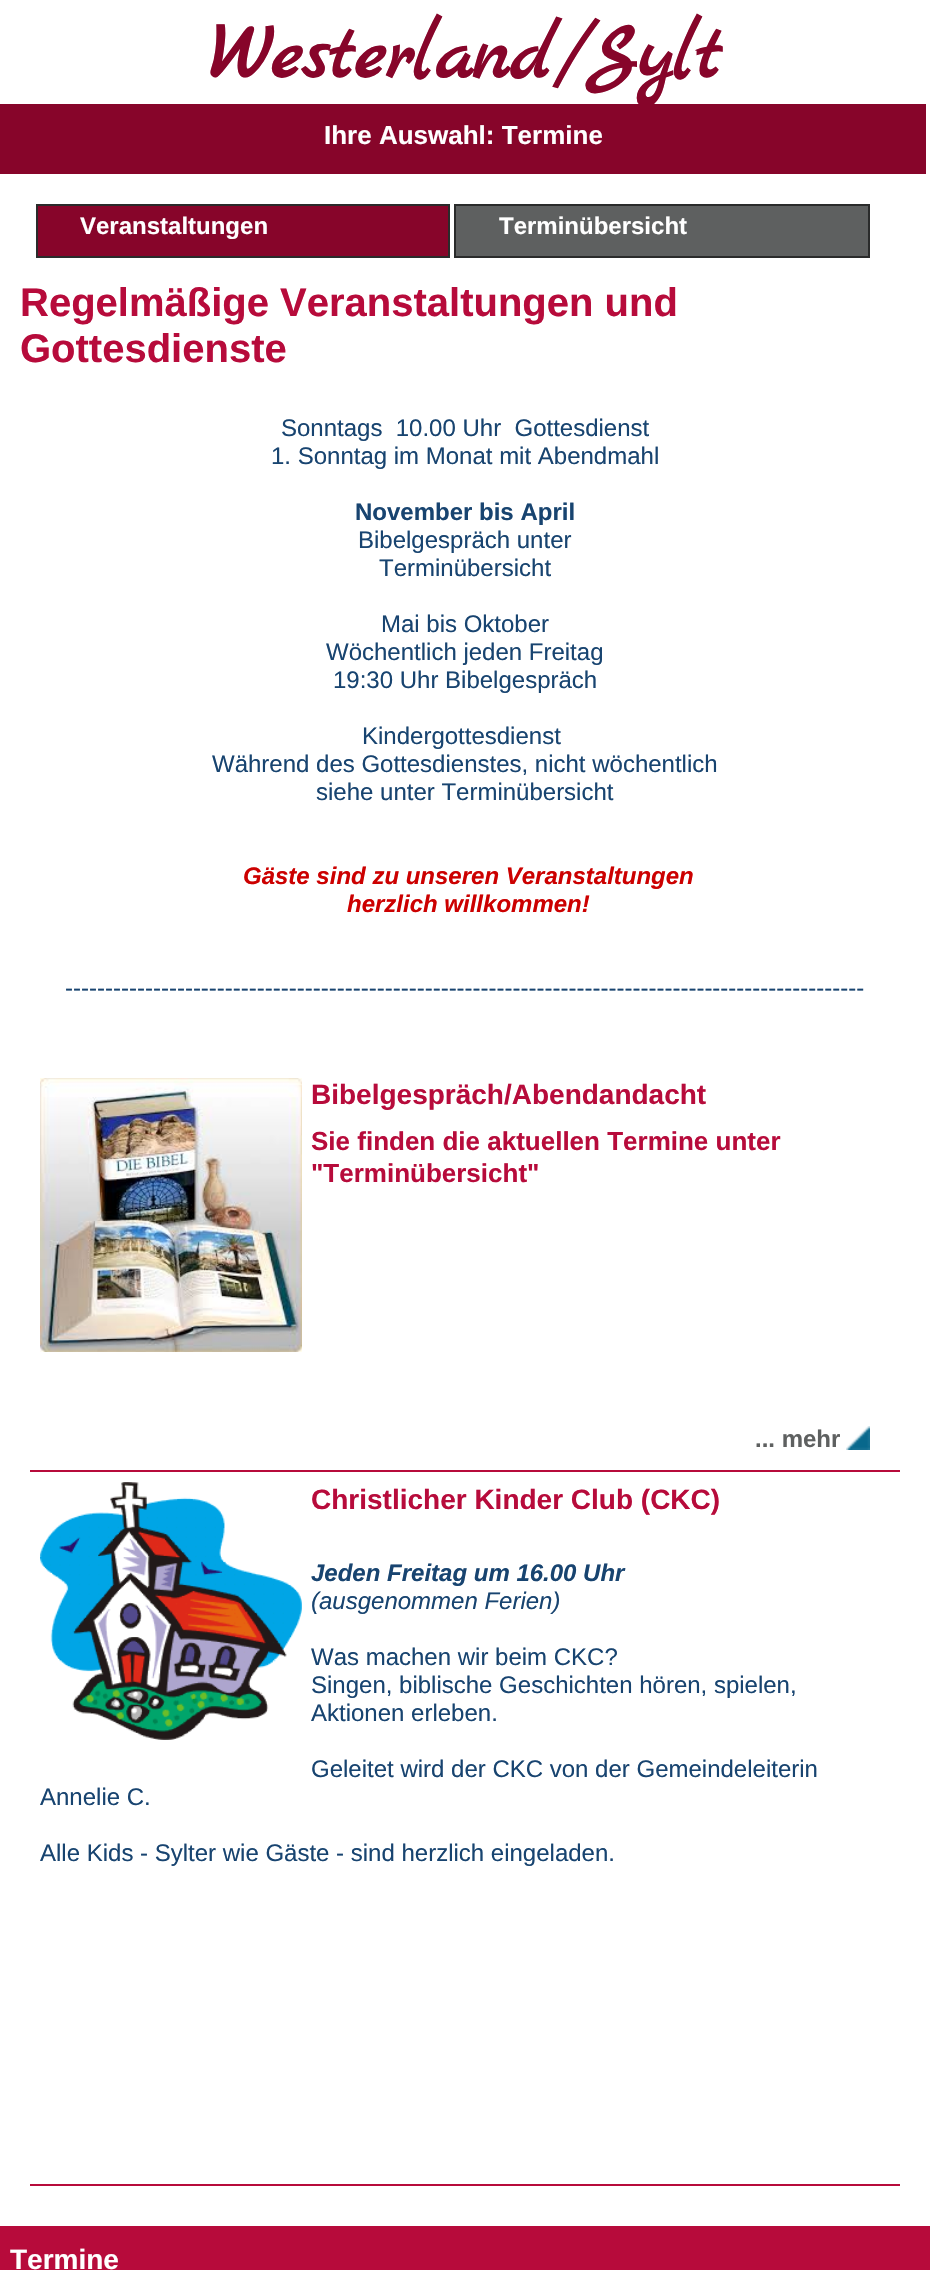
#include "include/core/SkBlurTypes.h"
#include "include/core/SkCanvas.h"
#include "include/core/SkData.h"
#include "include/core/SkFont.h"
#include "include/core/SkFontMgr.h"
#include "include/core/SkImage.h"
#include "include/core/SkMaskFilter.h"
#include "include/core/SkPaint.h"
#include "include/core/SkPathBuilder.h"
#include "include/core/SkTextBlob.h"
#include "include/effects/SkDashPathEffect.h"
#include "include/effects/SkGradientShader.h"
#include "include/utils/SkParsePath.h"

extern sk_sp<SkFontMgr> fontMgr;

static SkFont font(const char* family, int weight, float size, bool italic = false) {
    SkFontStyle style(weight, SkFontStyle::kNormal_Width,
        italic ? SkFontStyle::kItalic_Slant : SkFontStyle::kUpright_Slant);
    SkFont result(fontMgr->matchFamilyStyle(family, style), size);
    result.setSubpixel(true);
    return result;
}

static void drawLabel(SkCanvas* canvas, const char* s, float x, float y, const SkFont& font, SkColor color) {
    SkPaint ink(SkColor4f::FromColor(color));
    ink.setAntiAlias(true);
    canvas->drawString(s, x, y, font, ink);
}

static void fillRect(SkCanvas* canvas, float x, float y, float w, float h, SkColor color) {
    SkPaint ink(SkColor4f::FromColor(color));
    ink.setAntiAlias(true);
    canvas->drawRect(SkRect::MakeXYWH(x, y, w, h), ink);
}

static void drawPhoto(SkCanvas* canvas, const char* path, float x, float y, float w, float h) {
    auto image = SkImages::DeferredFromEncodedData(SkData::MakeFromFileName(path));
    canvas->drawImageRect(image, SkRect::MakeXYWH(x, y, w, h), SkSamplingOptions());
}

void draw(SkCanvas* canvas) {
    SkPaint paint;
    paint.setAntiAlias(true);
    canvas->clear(0xFFFFFFFF);
    fillRect(canvas, 0, 104, 926, 70, 0xFF87052A);
    SkFont font1 = font("Marck Script", 700, 80);
    drawLabel(canvas, "Westerland/Sylt", 208, 78, font1, 0xFF87052A);
    SkFont font2 = font("Liberation Sans", 700, 26);
    drawLabel(canvas, "Ihre Auswahl: Termine", 324, 144, font2, 0xFFFFFFFF);
    paint.setColor(0xFF87052A);
    canvas->drawRect(SkRect::MakeXYWH(37, 205, 412, 52), paint);
    paint.setStroke(true);
    paint.setStrokeWidth(2);
    paint.setColor(0xFF2A2B2B);
    canvas->drawRect(SkRect::MakeXYWH(37, 205, 412, 52), paint);
    SkFont font3 = font("Liberation Sans", 700, 24);
    drawLabel(canvas, "Veranstaltungen", 80, 234, font3, 0xFFFFFFFF);
    paint.setStroke(false);
    paint.setColor(0xFF5E6060);
    canvas->drawRect(SkRect::MakeXYWH(455, 205, 414, 52), paint);
    paint.setStroke(true);
    paint.setColor(0xFF2A2B2B);
    canvas->drawRect(SkRect::MakeXYWH(455, 205, 414, 52), paint);
    drawLabel(canvas, "Terminübersicht", 499, 234, font3, 0xFFFFFFFF);
    SkFont font4 = font("Liberation Sans", 700, 40);
    drawLabel(canvas, "Regelmäßige Veranstaltungen und", 20, 316, font4, 0xFFB70B3B);
    drawLabel(canvas, "Gottesdienste", 20, 362, font4, 0xFFB70B3B);
    SkFont font5 = font("Liberation Sans", 400, 24);
    drawLabel(canvas, "Sonntags  10.00 Uhr  Gottesdienst", 281, 436, font5, 0xFF184470);
    drawLabel(canvas, "1. Sonntag im Monat mit Abendmahl", 271, 464, font5, 0xFF184470);
    drawLabel(canvas, "November bis April", 355, 520, font3, 0xFF184470);
    drawLabel(canvas, "Bibelgespräch unter", 358, 548, font5, 0xFF184470);
    drawLabel(canvas, "Terminübersicht", 379, 576, font5, 0xFF184470);
    drawLabel(canvas, "Mai bis Oktober", 381, 632, font5, 0xFF184470);
    drawLabel(canvas, "Wöchentlich jeden Freitag", 326, 660, font5, 0xFF184470);
    drawLabel(canvas, "19:30 Uhr Bibelgespräch", 333, 688, font5, 0xFF184470);
    drawLabel(canvas, "Kindergottesdienst", 362, 744, font5, 0xFF184470);
    drawLabel(canvas, "Während des Gottesdienstes, nicht wöchentlich", 212, 772, font5, 0xFF184470);
    drawLabel(canvas, "siehe unter Terminübersicht", 316, 800, font5, 0xFF184470);
    SkFont font6 = font("Liberation Sans", 700, 24, true);
    drawLabel(canvas, "Gäste sind zu unseren Veranstaltungen", 243, 884, font6, 0xFFCC0000);
    drawLabel(canvas, "herzlich willkommen!", 347, 912, font6, 0xFFCC0000);
    drawLabel(canvas, "----------------------------------------------------------------------------------------------------", 65, 996, font5, 0xFF184470);
    fillRect(canvas, 30, 1470, 870, 2, 0xFFB70B3B);
    drawPhoto(canvas, "assets/img1.png", 40, 1078, 262, 274);
    SkFont font7 = font("Liberation Sans", 700, 28);
    drawLabel(canvas, "Bibelgespräch/Abendandacht", 311, 1104, font7, 0xFFB70B3B);
    drawLabel(canvas, "Sie finden die aktuellen Termine unter", 311, 1150, font2, 0xFFB70B3B);
    drawLabel(canvas, "\"Terminübersicht\"", 311, 1182, font2, 0xFFB70B3B);
    drawPhoto(canvas, "assets/img2.png", 846, 1426, 24, 24);
    drawLabel(canvas, "... mehr", 755, 1447, font3, 0xFF5E6060);
    fillRect(canvas, 30, 2184, 870, 2, 0xFFB70B3B);
    drawPhoto(canvas, "assets/img3.png", 40, 1482, 262, 258);
    drawLabel(canvas, "Christlicher Kinder Club (CKC)", 311, 1509, font7, 0xFFB70B3B);
    drawLabel(canvas, "Jeden Freitag um 16.00 Uhr", 311, 1581, font6, 0xFF184470);
    SkFont font8 = font("Liberation Sans", 400, 24, true);
    drawLabel(canvas, "(ausgenommen Ferien)", 311, 1609, font8, 0xFF184470);
    drawLabel(canvas, "Was machen wir beim CKC?", 311, 1665, font5, 0xFF184470);
    drawLabel(canvas, "Singen, biblische Geschichten hören, spielen,", 311, 1693, font5, 0xFF184470);
    drawLabel(canvas, "Aktionen erleben.", 311, 1721, font5, 0xFF184470);
    drawLabel(canvas, "Geleitet wird der CKC von der Gemeindeleiterin", 311, 1777, font5, 0xFF184470);
    drawLabel(canvas, "Annelie C.", 40, 1805, font5, 0xFF184470);
    drawLabel(canvas, "Alle Kids - Sylter wie Gäste - sind herzlich eingeladen.", 40, 1861, font5, 0xFF184470);
    fillRect(canvas, 0, 2226, 930, 44, 0xFFB70B3B);
    drawLabel(canvas, "Termine", 10, 2269, font7, 0xFFFFFFFF);
}
